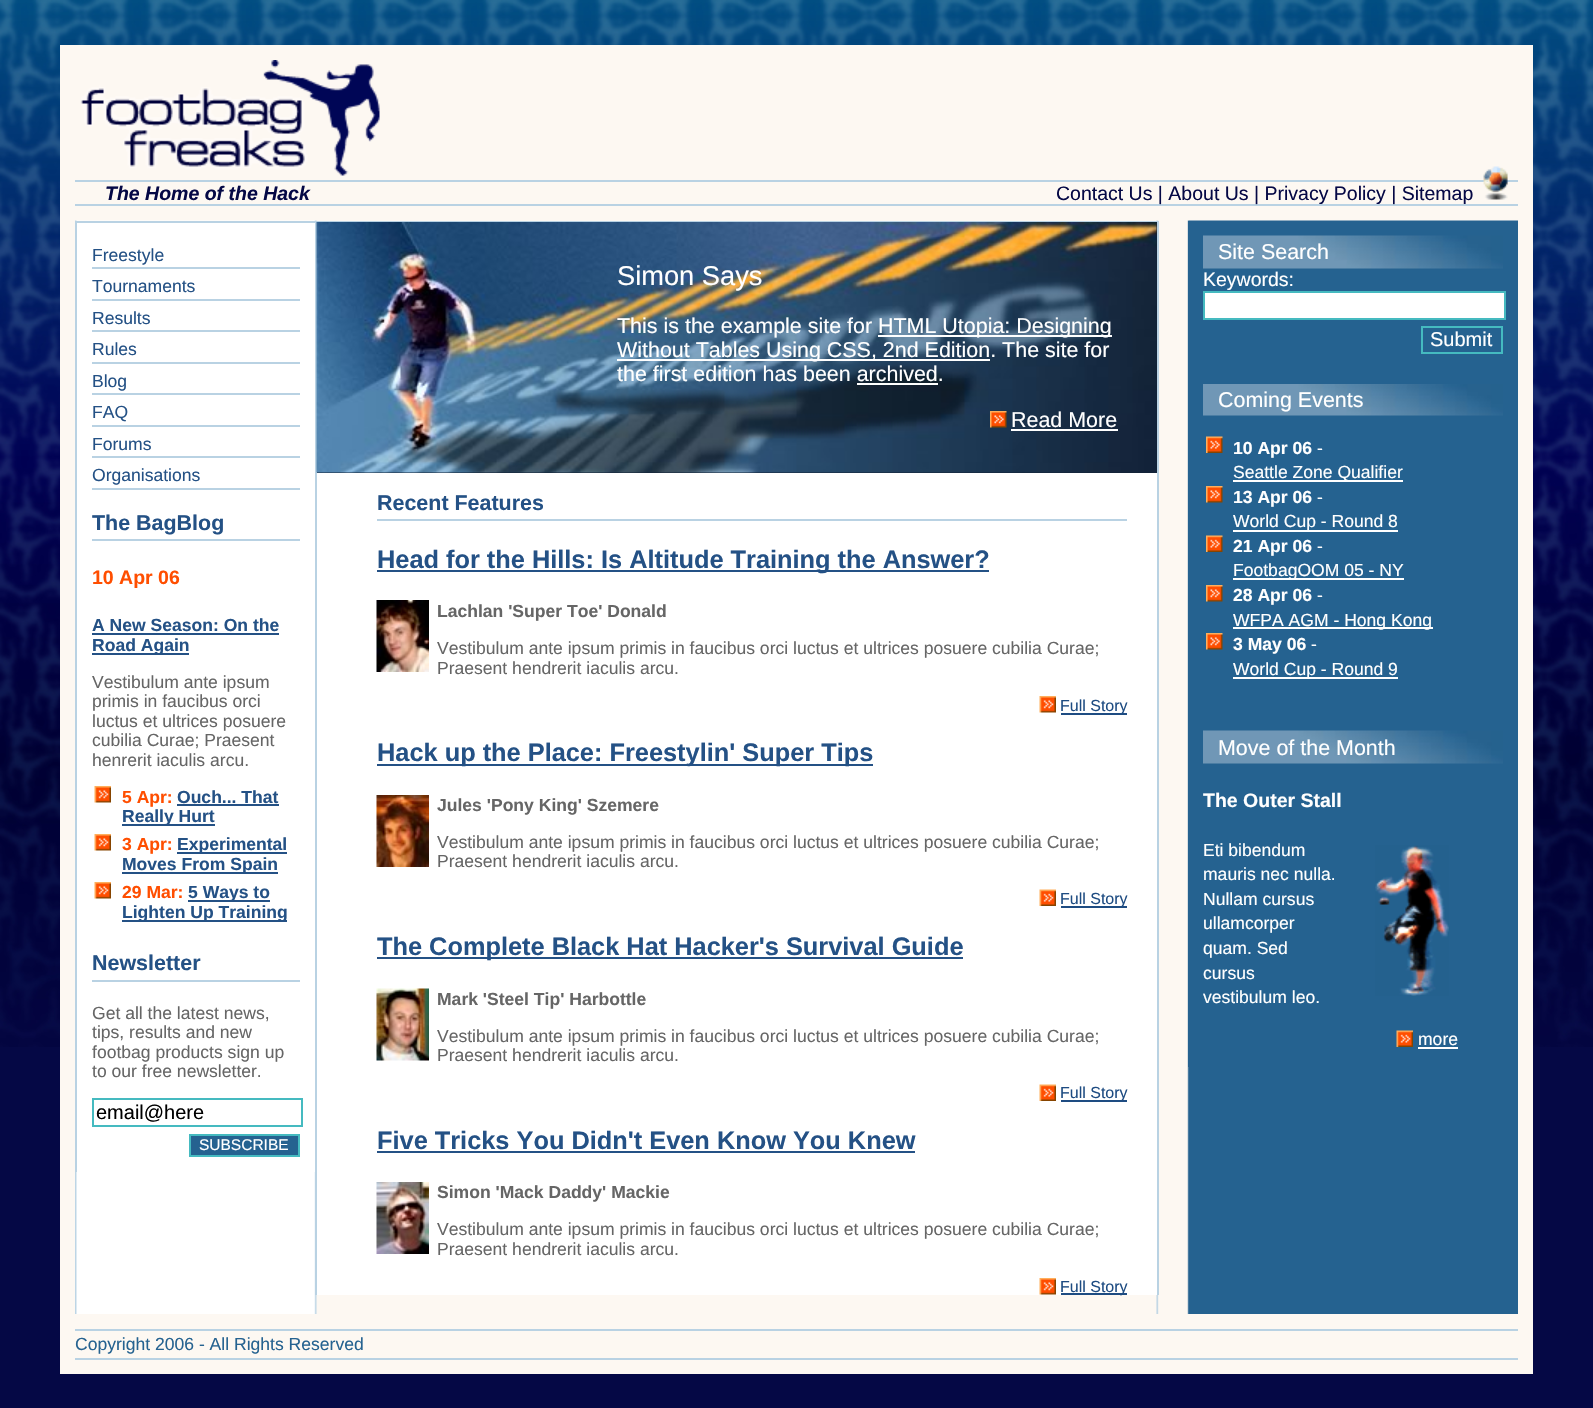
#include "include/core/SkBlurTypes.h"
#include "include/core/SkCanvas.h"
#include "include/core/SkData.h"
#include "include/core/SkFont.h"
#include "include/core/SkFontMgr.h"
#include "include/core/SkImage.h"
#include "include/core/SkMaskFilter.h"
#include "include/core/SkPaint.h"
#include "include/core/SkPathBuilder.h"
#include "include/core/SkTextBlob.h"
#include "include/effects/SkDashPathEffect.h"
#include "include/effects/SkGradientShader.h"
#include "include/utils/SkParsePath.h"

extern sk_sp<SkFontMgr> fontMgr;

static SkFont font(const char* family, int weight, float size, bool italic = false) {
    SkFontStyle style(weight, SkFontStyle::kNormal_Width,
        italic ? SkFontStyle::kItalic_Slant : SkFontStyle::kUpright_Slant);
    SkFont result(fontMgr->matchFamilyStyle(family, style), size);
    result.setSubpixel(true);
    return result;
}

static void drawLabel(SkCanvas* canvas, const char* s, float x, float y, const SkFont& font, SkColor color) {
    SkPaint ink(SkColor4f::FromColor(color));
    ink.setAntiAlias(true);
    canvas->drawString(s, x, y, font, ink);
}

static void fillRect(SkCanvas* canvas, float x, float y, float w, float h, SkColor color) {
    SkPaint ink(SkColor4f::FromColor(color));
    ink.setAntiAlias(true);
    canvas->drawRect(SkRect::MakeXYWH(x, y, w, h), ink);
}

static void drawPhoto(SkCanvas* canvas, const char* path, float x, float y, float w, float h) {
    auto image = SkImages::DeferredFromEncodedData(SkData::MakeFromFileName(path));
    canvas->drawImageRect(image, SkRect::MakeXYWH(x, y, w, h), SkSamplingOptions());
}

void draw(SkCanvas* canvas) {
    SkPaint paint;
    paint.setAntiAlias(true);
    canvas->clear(0xFF050845);
    drawPhoto(canvas, "assets/img1.png", 0, 0, 1593, 1047);
    fillRect(canvas, 60, 45, 1473, 1329, 0xFFFDF8F2);
    drawPhoto(canvas, "assets/img2.png", 80, 60, 300, 116);
    fillRect(canvas, 75, 180, 1443, 2, 0xFFB9D2E3);
    fillRect(canvas, 75, 204, 1443, 2, 0xFFB9D2E3);
    SkFont font1 = font("Liberation Sans", 700, 19.5f, true);
    drawLabel(canvas, "The Home of the Hack", 105, 200, font1, 0xFF050845);
    SkFont font2 = font("Liberation Sans", 400, 19.5f);
    drawLabel(canvas, "Contact Us | About Us | Privacy Policy | Sitemap", 1056, 200, font2, 0xFF050845);
    drawPhoto(canvas, "assets/img3.png", 1483, 166, 25, 34);
    drawPhoto(canvas, "assets/img4.png", 1156, 220, 362, 1094);
    drawPhoto(canvas, "assets/img5.png", 75, 220, 242, 1094);
    fillRect(canvas, 314, 223, 1, 949, 0xFFFFFFFF);
    fillRect(canvas, 75, 221, 240, 2, 0xFFB9D2E3);
    fillRect(canvas, 75, 221, 2, 951, 0xFFB9D2E3);
    fillRect(canvas, 92, 267, 208, 2, 0xFFB9D2E3);
    SkFont font3 = font("Liberation Sans", 400, 17.55f);
    drawLabel(canvas, "Freestyle", 92, 261, font3, 0xFF245185);
    fillRect(canvas, 92, 299, 208, 2, 0xFFB9D2E3);
    drawLabel(canvas, "Tournaments", 92, 292, font3, 0xFF245185);
    fillRect(canvas, 92, 330, 208, 2, 0xFFB9D2E3);
    drawLabel(canvas, "Results", 92, 324, font3, 0xFF245185);
    fillRect(canvas, 92, 362, 208, 2, 0xFFB9D2E3);
    drawLabel(canvas, "Rules", 92, 355, font3, 0xFF245185);
    fillRect(canvas, 92, 393, 208, 2, 0xFFB9D2E3);
    drawLabel(canvas, "Blog", 92, 387, font3, 0xFF245185);
    fillRect(canvas, 92, 425, 208, 2, 0xFFB9D2E3);
    drawLabel(canvas, "FAQ", 92, 418, font3, 0xFF245185);
    fillRect(canvas, 92, 456, 208, 2, 0xFFB9D2E3);
    drawLabel(canvas, "Forums", 92, 450, font3, 0xFF245185);
    fillRect(canvas, 92, 488, 208, 2, 0xFFB9D2E3);
    drawLabel(canvas, "Organisations", 92, 481, font3, 0xFF245185);
    fillRect(canvas, 92, 539, 208, 2, 0xFFB9D2E3);
    SkFont font4 = font("Liberation Sans", 700, 21.45f);
    drawLabel(canvas, "The BagBlog", 92, 530, font4, 0xFF245185);
    SkFont font5 = font("Liberation Sans", 700, 19.5f);
    drawLabel(canvas, "10 Apr 06", 92, 584, font5, 0xFFFF4E00);
    SkFont font6 = font("Liberation Sans", 700, 17.55f);
    drawLabel(canvas, "A New Season: On the", 92, 631, font6, 0xFF245185);
    fillRect(canvas, 92, 633, 187, 2, 0xFF245185);
    fillRect(canvas, 92, 653, 97, 2, 0xFF245185);
    drawLabel(canvas, "Road Again", 92, 651, font6, 0xFF245185);
    drawLabel(canvas, "Vestibulum ante ipsum", 92, 688, font3, 0xFF666666);
    drawLabel(canvas, "primis in faucibus orci", 92, 707, font3, 0xFF666666);
    drawLabel(canvas, "luctus et ultrices posuere", 92, 727, font3, 0xFF666666);
    drawLabel(canvas, "cubilia Curae; Praesent", 92, 746, font3, 0xFF666666);
    drawLabel(canvas, "henrerit iaculis arcu.", 92, 766, font3, 0xFF666666);
    drawPhoto(canvas, "assets/img6.png", 94, 786, 17, 17);
    drawLabel(canvas, "5 Apr:", 122, 803, font6, 0xFFFF4E00);
    drawLabel(canvas, "Ouch... That", 177, 803, font6, 0xFF245185);
    fillRect(canvas, 177, 804, 102, 2, 0xFF245185);
    fillRect(canvas, 122, 824, 93, 2, 0xFF245185);
    drawLabel(canvas, "Really Hurt", 122, 822, font6, 0xFF245185);
    drawPhoto(canvas, "assets/img6.png", 94, 834, 17, 17);
    drawLabel(canvas, "3 Apr:", 122, 850, font6, 0xFFFF4E00);
    fillRect(canvas, 177, 852, 110, 2, 0xFF245185);
    drawLabel(canvas, "Experimental", 177, 850, font6, 0xFF245185);
    fillRect(canvas, 122, 872, 156, 2, 0xFF245185);
    drawLabel(canvas, "Moves From Spain", 122, 870, font6, 0xFF245185);
    drawPhoto(canvas, "assets/img6.png", 94, 882, 17, 17);
    drawLabel(canvas, "29 Mar:", 122, 898, font6, 0xFFFF4E00);
    fillRect(canvas, 188, 900, 82, 2, 0xFF245185);
    drawLabel(canvas, "5 Ways to", 188, 898, font6, 0xFF245185);
    fillRect(canvas, 122, 920, 165, 2, 0xFF245185);
    drawLabel(canvas, "Lighten Up Training", 122, 918, font6, 0xFF245185);
    fillRect(canvas, 92, 980, 208, 2, 0xFFB9D2E3);
    drawLabel(canvas, "Newsletter", 92, 970, font4, 0xFF245185);
    drawLabel(canvas, "Get all the latest news,", 92, 1019, font3, 0xFF666666);
    drawLabel(canvas, "tips, results and new", 92, 1038, font3, 0xFF666666);
    drawLabel(canvas, "footbag products sign up", 92, 1058, font3, 0xFF666666);
    drawLabel(canvas, "to our free newsletter.", 92, 1077, font3, 0xFF666666);
    paint.setStroke(true);
    paint.setStrokeWidth(2);
    paint.setColor(0xFF45BAC0);
    canvas->drawRect(SkRect::MakeXYWH(93, 1099, 209, 27), paint);
    SkFont font7 = font("Liberation Sans", 400, 20);
    drawLabel(canvas, "email@here", 96, 1119, font7, 0xFF000000);
    paint.setStroke(false);
    paint.setColor(0xFF256290);
    canvas->drawRect(SkRect::MakeXYWH(190, 1135, 109, 21), paint);
    paint.setStroke(true);
    paint.setColor(0xFF45BAC0);
    canvas->drawRect(SkRect::MakeXYWH(190, 1135, 109, 21), paint);
    SkFont font8 = font("Liberation Sans", 400, 15.5f);
    drawLabel(canvas, "SUBSCRIBE", 199, 1150, font8, 0xFFFFFFFF);
    fillRect(canvas, 317, 473, 840, 822, 0xFFFFFFFF);
    fillRect(canvas, 315, 221, 843, 1, 0xFFB9D2E3);
    fillRect(canvas, 1157, 221, 2, 1074, 0xFFB9D2E3);
    fillRect(canvas, 315, 221, 2, 1074, 0xFFB9D2E3);
    fillRect(canvas, 317, 222, 840, 251, 0xFF112236);
    drawPhoto(canvas, "assets/img7.png", 316, 222, 841, 251);
    SkFont font9 = font("Liberation Sans", 400, 27.25f);
    drawLabel(canvas, "Simon Says", 617, 285, font9, 0xFFFFFFFF);
    SkFont font10 = font("Liberation Sans", 400, 21.45f);
    drawLabel(canvas, "This is the example site for", 617, 333, font10, 0xFFFFFFFF);
    fillRect(canvas, 878, 335, 234, 2, 0xFFFFFFFF);
    drawLabel(canvas, "HTML Utopia: Designing", 878, 333, font10, 0xFFFFFFFF);
    fillRect(canvas, 617, 359, 373, 2, 0xFFFFFFFF);
    drawLabel(canvas, "Without Tables Using CSS, 2nd Edition. The site for", 617, 357, font10, 0xFFFFFFFF);
    drawLabel(canvas, "the first edition has been archived.", 617, 381, font10, 0xFFFFFFFF);
    fillRect(canvas, 857, 383, 81, 2, 0xFFFFFFFF);
    drawPhoto(canvas, "assets/img8.png", 990, 411, 17, 17);
    drawLabel(canvas, "Read More", 1011, 427, font10, 0xFFFFFFFF);
    fillRect(canvas, 1011, 429, 107, 2, 0xFFFFFFFF);
    fillRect(canvas, 377, 519, 750, 2, 0xFFB9D2E3);
    drawLabel(canvas, "Recent Features", 377, 510, font4, 0xFF245185);
    fillRect(canvas, 377, 570, 612, 2, 0xFF245185);
    SkFont font11 = font("Liberation Sans", 700, 25.35f);
    drawLabel(canvas, "Head for the Hills: Is Altitude Training the Answer?", 377, 568, font11, 0xFF245185);
    drawPhoto(canvas, "assets/img9.png", 376, 600, 53, 72);
    drawLabel(canvas, "Lachlan 'Super Toe' Donald", 437, 617, font6, 0xFF666666);
    drawLabel(canvas, "Vestibulum ante ipsum primis in faucibus orci luctus et ultrices posuere cubilia Curae;", 437, 654, font3, 0xFF666666);
    drawLabel(canvas, "Praesent hendrerit iaculis arcu.", 437, 674, font3, 0xFF666666);
    drawPhoto(canvas, "assets/img6.png", 1039, 696, 17, 17);
    fillRect(canvas, 1061, 713, 66, 2, 0xFF1E4C82);
    SkFont font12 = font("Liberation Sans", 400, 16);
    drawLabel(canvas, "Full Story", 1060, 711, font12, 0xFF1E4C82);
    fillRect(canvas, 377, 764, 496, 2, 0xFF245185);
    drawLabel(canvas, "Hack up the Place: Freestylin' Super Tips", 377, 761, font11, 0xFF245185);
    drawPhoto(canvas, "assets/img10.png", 376, 795, 53, 72);
    drawLabel(canvas, "Jules 'Pony King' Szemere", 437, 811, font6, 0xFF666666);
    drawLabel(canvas, "Vestibulum ante ipsum primis in faucibus orci luctus et ultrices posuere cubilia Curae;", 437, 848, font3, 0xFF666666);
    drawLabel(canvas, "Praesent hendrerit iaculis arcu.", 437, 867, font3, 0xFF666666);
    drawPhoto(canvas, "assets/img11.png", 1039, 889, 17, 17);
    fillRect(canvas, 1061, 906, 66, 2, 0xFF1E4C82);
    drawLabel(canvas, "Full Story", 1060, 904, font12, 0xFF1E4C82);
    fillRect(canvas, 377, 957, 586, 2, 0xFF245185);
    drawLabel(canvas, "The Complete Black Hat Hacker's Survival Guide", 377, 955, font11, 0xFF245185);
    drawPhoto(canvas, "assets/img12.png", 376, 988, 53, 73);
    drawLabel(canvas, "Mark 'Steel Tip' Harbottle", 437, 1005, font6, 0xFF666666);
    drawLabel(canvas, "Vestibulum ante ipsum primis in faucibus orci luctus et ultrices posuere cubilia Curae;", 437, 1042, font3, 0xFF666666);
    drawLabel(canvas, "Praesent hendrerit iaculis arcu.", 437, 1061, font3, 0xFF666666);
    drawPhoto(canvas, "assets/img11.png", 1039, 1084, 17, 17);
    fillRect(canvas, 1061, 1100, 66, 2, 0xFF1E4C82);
    drawLabel(canvas, "Full Story", 1060, 1098, font12, 0xFF1E4C82);
    drawLabel(canvas, "Five Tricks You Didn't Even Know You Knew", 377, 1149, font11, 0xFF245185);
    fillRect(canvas, 377, 1151, 538, 2, 0xFF245185);
    drawPhoto(canvas, "assets/img13.png", 376, 1182, 53, 72);
    drawLabel(canvas, "Simon 'Mack Daddy' Mackie", 437, 1198, font6, 0xFF666666);
    drawLabel(canvas, "Vestibulum ante ipsum primis in faucibus orci luctus et ultrices posuere cubilia Curae;", 437, 1235, font3, 0xFF666666);
    drawLabel(canvas, "Praesent hendrerit iaculis arcu.", 437, 1255, font3, 0xFF666666);
    drawPhoto(canvas, "assets/img6.png", 1039, 1278, 17, 17);
    fillRect(canvas, 1061, 1293, 66, 2, 0xFF1E4C82);
    drawLabel(canvas, "Full Story", 1060, 1292, font12, 0xFF1E4C82);
    fillRect(canvas, 1188, 221, 1, 846, 0xFF256290);
    drawPhoto(canvas, "assets/img14.png", 1203, 235, 300, 34);
    drawLabel(canvas, "Site Search", 1218, 259, font10, 0xFFFFFFFF);
    drawLabel(canvas, "Keywords:", 1203, 286, font2, 0xFFFFFFFF);
    paint.setStroke(false);
    paint.setColor(0xFFFFFFFF);
    canvas->drawRect(SkRect::MakeXYWH(1204, 292, 301, 27), paint);
    paint.setStroke(true);
    paint.setColor(0xFF45BAC0);
    canvas->drawRect(SkRect::MakeXYWH(1204, 292, 301, 27), paint);
    canvas->drawRect(SkRect::MakeXYWH(1422, 327, 80, 26), paint);
    drawLabel(canvas, "Submit", 1430, 346, font7, 0xFFFFFFFF);
    drawPhoto(canvas, "assets/img15.png", 1203, 384, 300, 32);
    drawLabel(canvas, "Coming Events", 1218, 407, font10, 0xFFFFFFFF);
    drawPhoto(canvas, "assets/img16.png", 1206, 436, 17, 17);
    drawLabel(canvas, "10 Apr 06", 1233, 454, font6, 0xFFFFFFFF);
    drawLabel(canvas, "-", 1317, 454, font3, 0xFFFFFFFF);
    fillRect(canvas, 1233, 480, 170, 2, 0xFFFFFFFF);
    drawLabel(canvas, "Seattle Zone Qualifier", 1233, 478, font3, 0xFFFFFFFF);
    drawPhoto(canvas, "assets/img17.png", 1206, 486, 17, 17);
    drawLabel(canvas, "13 Apr 06", 1233, 503, font6, 0xFFFFFFFF);
    drawLabel(canvas, "-", 1317, 503, font3, 0xFFFFFFFF);
    fillRect(canvas, 1233, 530, 165, 2, 0xFFFFFFFF);
    drawLabel(canvas, "World Cup - Round 8", 1233, 527, font3, 0xFFFFFFFF);
    drawPhoto(canvas, "assets/img16.png", 1206, 535, 17, 17);
    drawLabel(canvas, "21 Apr 06", 1233, 552, font6, 0xFFFFFFFF);
    drawLabel(canvas, "-", 1317, 552, font3, 0xFFFFFFFF);
    fillRect(canvas, 1233, 578, 171, 2, 0xFFFFFFFF);
    drawLabel(canvas, "FootbagOOM 05 - NY", 1233, 576, font3, 0xFFFFFFFF);
    drawPhoto(canvas, "assets/img17.png", 1206, 585, 17, 17);
    drawLabel(canvas, "28 Apr 06", 1233, 601, font6, 0xFFFFFFFF);
    drawLabel(canvas, "-", 1317, 601, font3, 0xFFFFFFFF);
    fillRect(canvas, 1233, 627, 200, 2, 0xFFFFFFFF);
    drawLabel(canvas, "WFPA AGM - Hong Kong", 1233, 626, font3, 0xFFFFFFFF);
    drawPhoto(canvas, "assets/img17.png", 1206, 633, 17, 17);
    drawLabel(canvas, "3 May 06", 1233, 650, font6, 0xFFFFFFFF);
    drawLabel(canvas, "-", 1311, 650, font3, 0xFFFFFFFF);
    fillRect(canvas, 1233, 677, 165, 2, 0xFFFFFFFF);
    drawLabel(canvas, "World Cup - Round 9", 1233, 675, font3, 0xFFFFFFFF);
    drawPhoto(canvas, "assets/img14.png", 1203, 730, 300, 34);
    drawLabel(canvas, "Move of the Month", 1218, 755, font10, 0xFFFFFFFF);
    drawLabel(canvas, "The Outer Stall", 1203, 807, font5, 0xFFFFFFFF);
    drawLabel(canvas, "Eti bibendum", 1203, 856, font3, 0xFFFFFFFF);
    drawLabel(canvas, "mauris nec nulla.", 1203, 880, font3, 0xFFFFFFFF);
    drawLabel(canvas, "Nullam cursus", 1203, 905, font3, 0xFFFFFFFF);
    drawLabel(canvas, "ullamcorper", 1203, 929, font3, 0xFFFFFFFF);
    drawLabel(canvas, "quam. Sed", 1203, 954, font3, 0xFFFFFFFF);
    drawLabel(canvas, "cursus", 1203, 979, font3, 0xFFFFFFFF);
    drawLabel(canvas, "vestibulum leo.", 1203, 1003, font3, 0xFFFFFFFF);
    drawPhoto(canvas, "assets/img18.png", 1375, 845, 74, 151);
    drawPhoto(canvas, "assets/img19.png", 1396, 1030, 17, 17);
    drawLabel(canvas, "more", 1418, 1045, font3, 0xFFFFFFFF);
    fillRect(canvas, 1418, 1047, 40, 2, 0xFFFFFFFF);
    fillRect(canvas, 75, 1329, 1443, 2, 0xFFB9D2E3);
    fillRect(canvas, 75, 1358, 1443, 2, 0xFFB9D2E3);
    drawLabel(canvas, "Copyright 2006 - All Rights Reserved", 75, 1350, font3, 0xFF256290);
}
